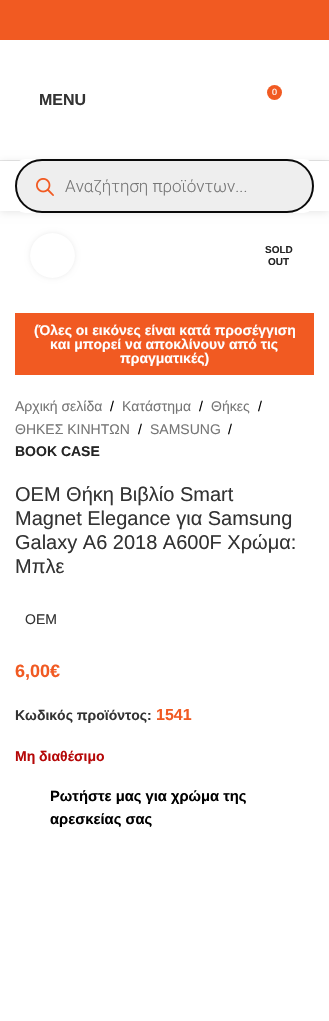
#include "include/core/SkBlurTypes.h"
#include "include/core/SkCanvas.h"
#include "include/core/SkData.h"
#include "include/core/SkFont.h"
#include "include/core/SkFontMgr.h"
#include "include/core/SkImage.h"
#include "include/core/SkMaskFilter.h"
#include "include/core/SkPaint.h"
#include "include/core/SkPathBuilder.h"
#include "include/core/SkTextBlob.h"
#include "include/effects/SkDashPathEffect.h"
#include "include/effects/SkGradientShader.h"
#include "include/utils/SkParsePath.h"

extern sk_sp<SkFontMgr> fontMgr;

static SkFont font(const char* family, int weight, float size, bool italic = false) {
    SkFontStyle style(weight, SkFontStyle::kNormal_Width,
        italic ? SkFontStyle::kItalic_Slant : SkFontStyle::kUpright_Slant);
    SkFont result(fontMgr->matchFamilyStyle(family, style), size);
    result.setSubpixel(true);
    return result;
}

static void drawLabel(SkCanvas* canvas, const char* s, float x, float y, const SkFont& font, SkColor color) {
    SkPaint ink(SkColor4f::FromColor(color));
    ink.setAntiAlias(true);
    canvas->drawString(s, x, y, font, ink);
}

static void fillRect(SkCanvas* canvas, float x, float y, float w, float h, SkColor color) {
    SkPaint ink(SkColor4f::FromColor(color));
    ink.setAntiAlias(true);
    canvas->drawRect(SkRect::MakeXYWH(x, y, w, h), ink);
}

static void fillRRect(SkCanvas* canvas, float x, float y, float w, float h, float radius, SkColor color) {
    SkPaint ink(SkColor4f::FromColor(color));
    ink.setAntiAlias(true);
    canvas->drawRoundRect(SkRect::MakeXYWH(x, y, w, h), radius, radius, ink);
}

static void drawPhoto(SkCanvas* canvas, const char* path, float x, float y, float w, float h) {
    auto image = SkImages::DeferredFromEncodedData(SkData::MakeFromFileName(path));
    canvas->drawImageRect(image, SkRect::MakeXYWH(x, y, w, h), SkSamplingOptions());
}

static SkPath parsePath(const char* data, bool evenOdd = false) {
    SkPath result = *SkParsePath::FromSVGString(data);
    if (evenOdd) result.setFillType(SkPathFillType::kEvenOdd);
    return result;
}

void draw(SkCanvas* canvas) {
    SkPaint paint;
    paint.setAntiAlias(true);
    canvas->clear(0xFFFFFFFF);
    fillRect(canvas, 0, 0, 329, 40, 0xFFF15A22);
    fillRect(canvas, 0, 160, 329, 1, 0xFFE6E6E6);
    paint.setColor(0xFFF15A22);
    canvas->drawCircle(274.5f, 92.5f, 7.5f, paint);
    SkFont font1 = font("Liberation Sans", 400, 9);
    drawLabel(canvas, "0", 272, 95, font1, 0xFFFFFFFF);
    SkFont font2 = font("Liberation Sans", 700, 16);
    drawLabel(canvas, "MENU", 39, 105, font2, 0xFF333333);
    canvas->save();
    canvas->clipPath(parsePath("M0 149H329V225H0ZM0 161H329V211H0Z", true), true);
    paint.setColor(0x1A000000);
    paint.setMaskFilter(SkMaskFilter::MakeBlur(kNormal_SkBlurStyle, 4));
    canvas->drawRect(SkRect::MakeXYWH(0, 162, 329, 50), paint);
    paint.setMaskFilter(nullptr);
    canvas->restore();
    fillRRect(canvas, 15, 159, 299, 54, 10, 0xFFFFFFFF);
    paint.setColor(0xFFEEEEEE);
    canvas->drawRoundRect(SkRect::MakeXYWH(16, 160, 297, 52), 26, 26, paint);
    paint.setStroke(true);
    paint.setStrokeWidth(2);
    paint.setColor(0xFF0A0A0A);
    canvas->drawRoundRect(SkRect::MakeXYWH(16, 160, 297, 52), 26, 26, paint);
    drawPhoto(canvas, "assets/img1.png", 36, 178, 18, 18);
    SkFont font3 = font("Roboto", 300, 17);
    drawLabel(canvas, "Αναζήτηση προϊόντων...", 65, 192, font3, 0xFF767676);
    paint.setStroke(false);
    paint.setColor(0x14000000);
    paint.setMaskFilter(SkMaskFilter::MakeBlur(kNormal_SkBlurStyle, 2.5f));
    canvas->drawRoundRect(SkRect::MakeXYWH(30, 233, 45, 45), 22.5f, 22.5f, paint);
    paint.setMaskFilter(nullptr);
    paint.setColor(0xFFFFFFFF);
    canvas->drawCircle(52.5f, 255.5f, 22.5f, paint);
    SkFont font4 = font("Liberation Sans", 700, 10);
    drawLabel(canvas, "SOLD", 265, 253, font4, 0xFF242424);
    drawLabel(canvas, "OUT", 268, 265, font4, 0xFF242424);
    fillRect(canvas, 15, 313, 299, 62, 0xFFF15A22);
    SkFont font5 = font("Liberation Sans", 700, 14);
    drawLabel(canvas, "(Όλες οι εικόνες είναι κατά προσέγγιση", 34, 335, font5, 0xFFFFFFFF);
    drawLabel(canvas, "και μπορεί να αποκλίνουν από τις", 50, 349, font5, 0xFFFFFFFF);
    drawLabel(canvas, "πραγματικές)", 120, 363, font5, 0xFFFFFFFF);
    SkFont font6 = font("Liberation Sans", 400, 14);
    drawLabel(canvas, "Αρχική σελίδα", 15, 411, font6, 0xFF767676);
    drawLabel(canvas, "/", 110, 411, font6, 0xFF000000);
    drawLabel(canvas, "Κατάστημα", 122, 411, font6, 0xFF767676);
    drawLabel(canvas, "/", 199, 411, font6, 0xFF000000);
    drawLabel(canvas, "Θήκες", 211, 411, font6, 0xFF767676);
    drawLabel(canvas, "/", 258, 411, font6, 0xFF000000);
    drawLabel(canvas, "ΘΗΚΕΣ ΚΙΝΗΤΩΝ", 15, 434, font6, 0xFF767676);
    drawLabel(canvas, "/", 138, 434, font6, 0xFF000000);
    drawLabel(canvas, "SAMSUNG", 150, 434, font6, 0xFF767676);
    drawLabel(canvas, "/", 228, 434, font6, 0xFF000000);
    drawLabel(canvas, "BOOK CASE", 15, 456, font5, 0xFF242424);
    SkFont font7 = font("Liberation Sans", 400, 20);
    drawLabel(canvas, "OEM Θήκη Βιβλίο Smart", 15, 501, font7, 0xFF333333);
    drawLabel(canvas, "Magnet Elegance για Samsung", 15, 525, font7, 0xFF333333);
    drawLabel(canvas, "Galaxy A6 2018 A600F Χρώμα:", 15, 549, font7, 0xFF333333);
    drawLabel(canvas, "Μπλε", 15, 573, font7, 0xFF333333);
    drawLabel(canvas, "OEM", 25, 624, font6, 0xFF333333);
    SkFont font8 = font("Liberation Sans", 700, 18);
    drawLabel(canvas, "6,00€", 15, 677, font8, 0xFFF15A22);
    drawLabel(canvas, "Κωδικός προϊόντος:", 15, 720, font5, 0xFF333333);
    drawLabel(canvas, "1541", 156, 720, font2, 0xFFF15A22);
    drawLabel(canvas, "Μη διαθέσιμο", 15, 761, font5, 0xFFB50808);
    SkFont font9 = font("Liberation Sans", 700, 14.75f);
    drawLabel(canvas, "Ρωτήστε μας για χρώμα της", 50, 801, font9, 0xFF000000);
    drawLabel(canvas, "αρεσκείας σας", 50, 824, font9, 0xFF000000);
}
